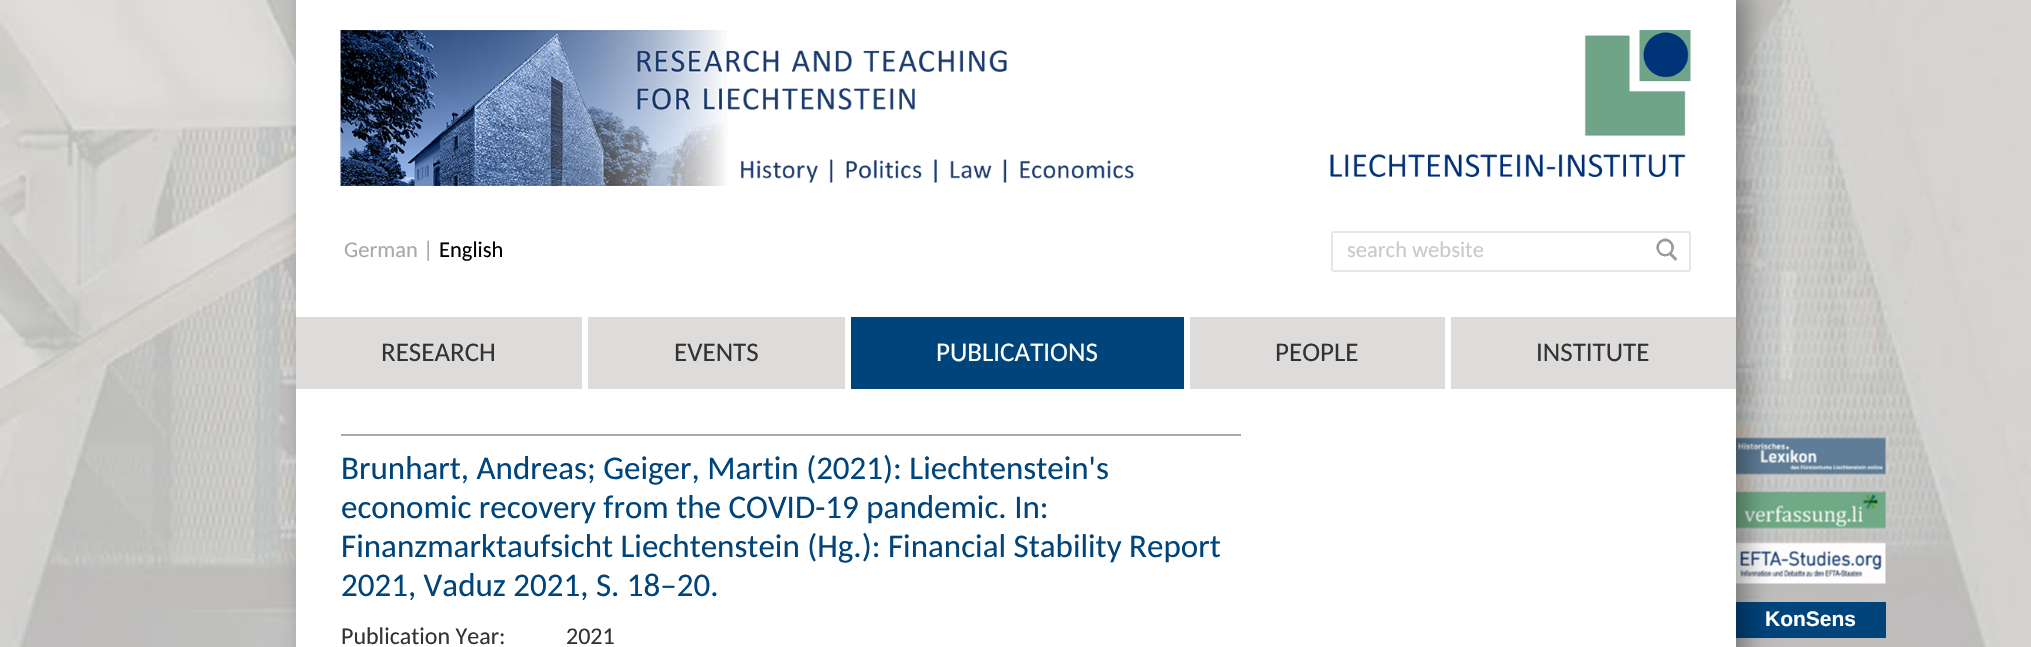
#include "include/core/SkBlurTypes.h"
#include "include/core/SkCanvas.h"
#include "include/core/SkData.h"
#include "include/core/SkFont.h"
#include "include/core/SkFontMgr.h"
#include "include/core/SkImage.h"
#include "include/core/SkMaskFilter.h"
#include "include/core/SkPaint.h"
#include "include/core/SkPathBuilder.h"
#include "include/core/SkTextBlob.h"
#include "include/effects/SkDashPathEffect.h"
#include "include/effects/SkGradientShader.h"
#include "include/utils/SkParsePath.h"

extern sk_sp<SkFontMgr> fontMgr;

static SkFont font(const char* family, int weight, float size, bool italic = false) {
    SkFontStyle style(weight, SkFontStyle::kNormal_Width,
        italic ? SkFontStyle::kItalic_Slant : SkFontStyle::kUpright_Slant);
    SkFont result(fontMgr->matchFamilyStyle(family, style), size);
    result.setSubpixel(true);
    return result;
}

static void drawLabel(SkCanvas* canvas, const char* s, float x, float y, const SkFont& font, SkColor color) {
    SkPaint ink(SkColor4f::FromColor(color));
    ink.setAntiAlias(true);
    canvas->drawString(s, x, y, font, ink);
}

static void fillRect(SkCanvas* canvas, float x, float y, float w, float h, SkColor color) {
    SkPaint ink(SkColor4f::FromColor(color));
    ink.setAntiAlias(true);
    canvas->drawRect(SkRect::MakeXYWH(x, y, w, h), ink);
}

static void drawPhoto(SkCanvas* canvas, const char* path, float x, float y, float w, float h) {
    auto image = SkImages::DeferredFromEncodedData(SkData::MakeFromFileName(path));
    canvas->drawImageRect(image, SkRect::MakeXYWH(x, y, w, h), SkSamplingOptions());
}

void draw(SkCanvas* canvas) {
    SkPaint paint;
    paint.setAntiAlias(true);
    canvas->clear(0xFFFFFFFF);
    drawPhoto(canvas, "assets/img1.png", 0, 0, 2031, 647);
    drawPhoto(canvas, "assets/img5.png", 1736, 437, 150, 38);
    drawPhoto(canvas, "assets/img6.png", 1736, 491, 150, 38);
    drawPhoto(canvas, "assets/img7.png", 1736, 542, 150, 42);
    fillRect(canvas, 1736, 602, 150, 36, 0xFF00447C);
    paint.setColor(0x66000000);
    paint.setMaskFilter(SkMaskFilter::MakeBlur(kNormal_SkBlurStyle, 13.5f));
    canvas->drawRect(SkRect::MakeXYWH(308, -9, 1437, 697), paint);
    paint.setMaskFilter(nullptr);
    fillRect(canvas, 296, 0, 1440, 647, 0xFFFFFFFF);
    drawPhoto(canvas, "assets/img2.png", 340, 30, 794, 156);
    drawPhoto(canvas, "assets/img3.png", 1330, 30, 361, 147);
    SkFont font1 = font("Carlito", 400, 22.5f);
    drawLabel(canvas, "German |", 344, 257, font1, 0xFFA7A9AC);
    drawLabel(canvas, "English", 439, 257, font1, 0xFF000000);
    paint.setStroke(true);
    paint.setStrokeWidth(2);
    paint.setColor(0xFFE6E6E6);
    canvas->drawRoundRect(SkRect::MakeXYWH(1332, 232, 358, 39), 2, 2, paint);
    drawLabel(canvas, "search website", 1347, 257, font1, 0xFFCACACA);
    drawPhoto(canvas, "assets/img4.png", 1656, 238, 21, 23);
    fillRect(canvas, 296, 317, 286, 72, 0xFFDEDCDB);
    SkFont font2 = font("Carlito", 400, 27);
    drawLabel(canvas, "RESEARCH", 381, 361, font2, 0xFF333333);
    fillRect(canvas, 588, 317, 257, 72, 0xFFDEDCDB);
    drawLabel(canvas, "EVENTS", 674, 361, font2, 0xFF333333);
    fillRect(canvas, 851, 317, 333, 72, 0xFF00447C);
    drawLabel(canvas, "PUBLICATIONS", 936, 361, font2, 0xFFFFFFFF);
    fillRect(canvas, 1190, 317, 255, 72, 0xFFDEDCDB);
    drawLabel(canvas, "PEOPLE", 1275, 361, font2, 0xFF333333);
    fillRect(canvas, 1451, 317, 285, 72, 0xFFDEDCDB);
    drawLabel(canvas, "INSTITUTE", 1536, 361, font2, 0xFF333333);
    fillRect(canvas, 341, 434, 900, 2, 0xFFA7A9AC);
    SkFont font3 = font("Carlito", 400, 33);
    drawLabel(canvas, "Brunhart, Andreas; Geiger, Martin (2021): Liechtenstein's", 341, 479, font3, 0xFF00447C);
    drawLabel(canvas, "economic recovery from the COVID-19 pandemic. In:", 341, 518, font3, 0xFF00447C);
    drawLabel(canvas, "Finanzmarktaufsicht Liechtenstein (Hg.): Financial Stability Report", 341, 557, font3, 0xFF00447C);
    drawLabel(canvas, "2021, Vaduz 2021, S. 18–20.", 341, 596, font3, 0xFF00447C);
    SkFont font4 = font("Carlito", 400, 24);
    drawLabel(canvas, "Publication Year:", 341, 644, font4, 0xFF333333);
    drawLabel(canvas, "2021", 566, 644, font4, 0xFF333333);
    SkFont font5 = font("Liberation Sans", 700, 21);
    drawLabel(canvas, "KonSens", 1765, 626, font5, 0xFFFFFFFF);
}
